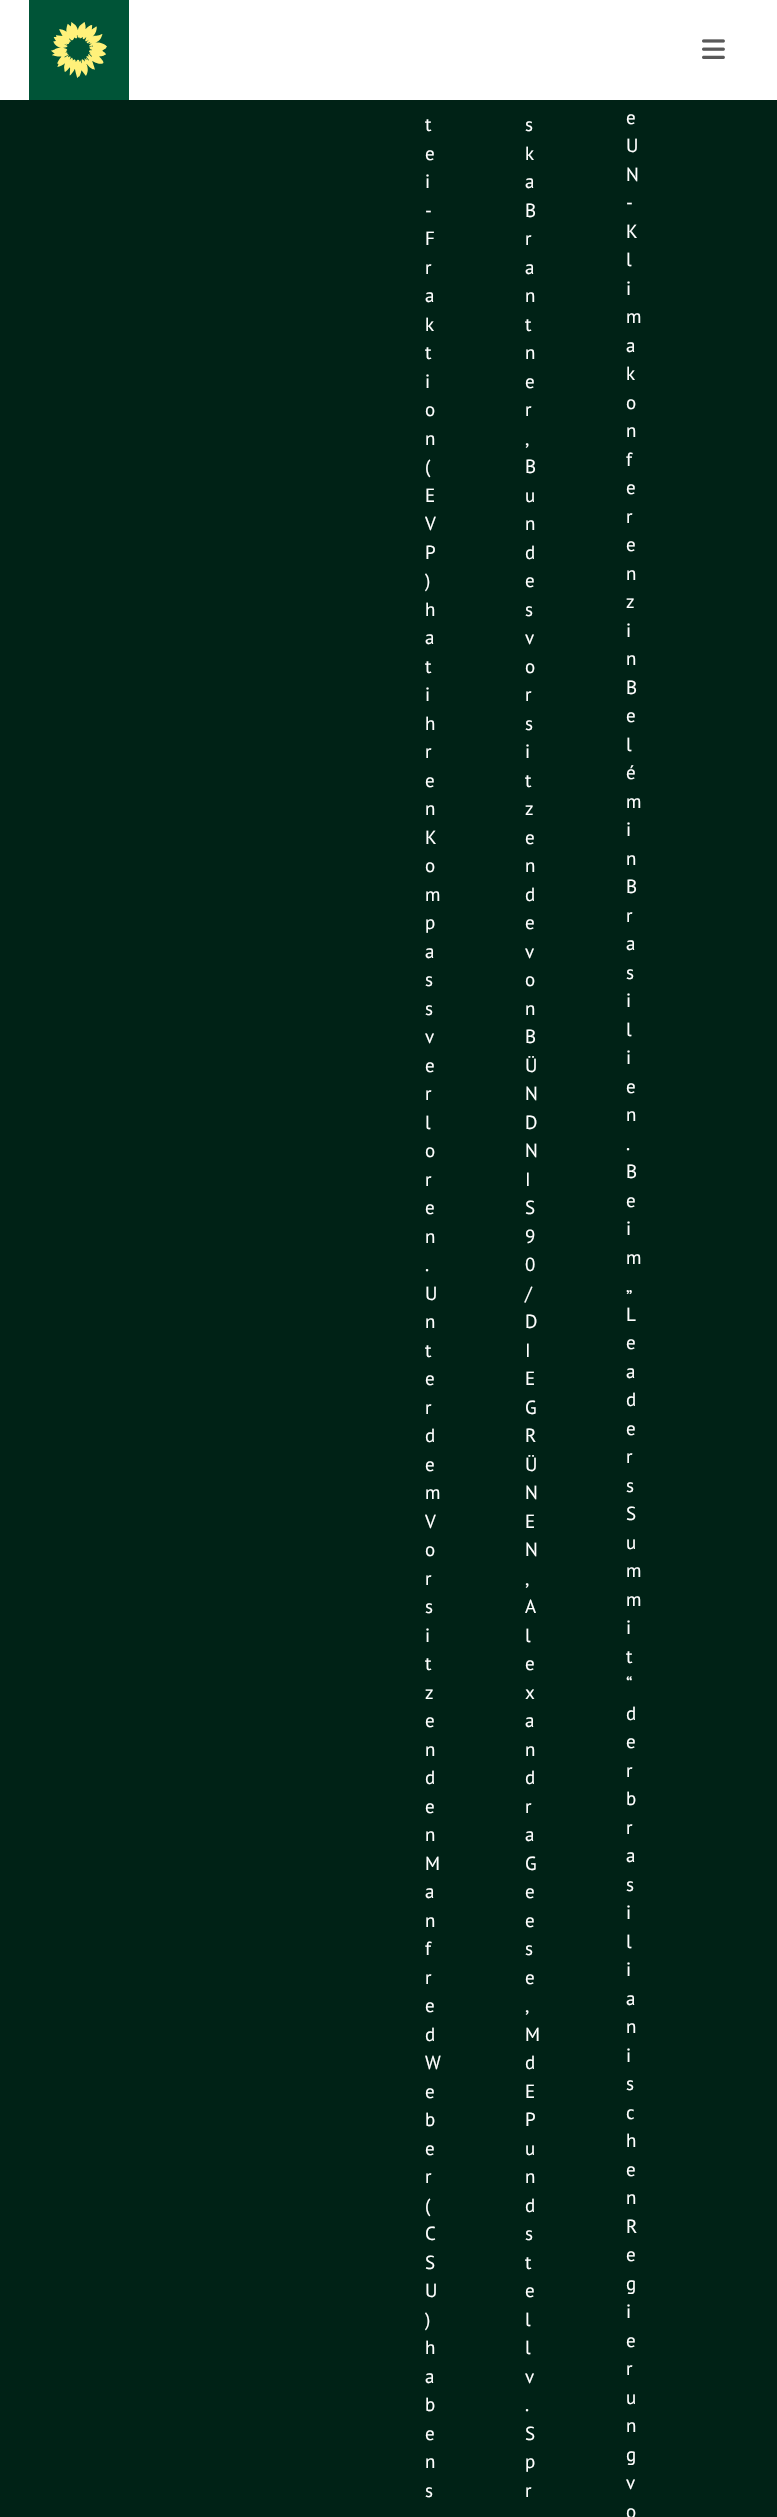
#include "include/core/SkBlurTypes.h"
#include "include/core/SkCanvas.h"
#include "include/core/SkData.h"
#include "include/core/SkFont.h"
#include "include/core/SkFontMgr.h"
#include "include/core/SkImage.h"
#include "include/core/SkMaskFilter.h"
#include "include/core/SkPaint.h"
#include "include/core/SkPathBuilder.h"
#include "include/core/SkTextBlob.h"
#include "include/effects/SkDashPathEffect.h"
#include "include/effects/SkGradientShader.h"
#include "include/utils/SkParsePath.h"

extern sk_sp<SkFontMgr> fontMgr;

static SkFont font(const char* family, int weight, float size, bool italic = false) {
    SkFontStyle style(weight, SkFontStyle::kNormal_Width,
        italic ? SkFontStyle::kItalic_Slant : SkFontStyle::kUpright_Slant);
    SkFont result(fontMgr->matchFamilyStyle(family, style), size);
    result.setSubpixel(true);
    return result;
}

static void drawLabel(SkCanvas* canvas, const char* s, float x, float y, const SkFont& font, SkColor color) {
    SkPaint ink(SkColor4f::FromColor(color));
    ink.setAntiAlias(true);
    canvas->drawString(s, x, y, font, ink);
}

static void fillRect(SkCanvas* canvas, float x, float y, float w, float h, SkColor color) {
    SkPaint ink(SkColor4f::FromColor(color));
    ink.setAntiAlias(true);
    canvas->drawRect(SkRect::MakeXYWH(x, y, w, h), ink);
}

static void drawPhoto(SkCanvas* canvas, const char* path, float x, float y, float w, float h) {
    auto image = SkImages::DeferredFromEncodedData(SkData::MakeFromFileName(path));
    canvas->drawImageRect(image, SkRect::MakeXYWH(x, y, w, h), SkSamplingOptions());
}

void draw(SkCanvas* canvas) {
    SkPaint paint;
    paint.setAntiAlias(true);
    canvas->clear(0xFF002216);
    fillRect(canvas, 0, 0, 777, 100, 0xFFFFFFFF);
    fillRect(canvas, 29, 0, 100, 100, 0xFF005437);
    drawPhoto(canvas, "assets/img1.png", 51, 22, 56, 56);
    drawPhoto(canvas, "assets/img2.png", 702, 39, 23, 20);
    SkFont font1 = font("PT Sans", 400, 19);
    drawLabel(canvas, "t", 425, 131, font1, 0xFFFFFFFF);
    drawLabel(canvas, "e", 425, 160, font1, 0xFFFFFFFF);
    drawLabel(canvas, "i", 425, 188, font1, 0xFFFFFFFF);
    drawLabel(canvas, "-", 425, 217, font1, 0xFFFFFFFF);
    drawLabel(canvas, "F", 425, 245, font1, 0xFFFFFFFF);
    drawLabel(canvas, "r", 425, 274, font1, 0xFFFFFFFF);
    drawLabel(canvas, "a", 425, 302, font1, 0xFFFFFFFF);
    drawLabel(canvas, "k", 425, 331, font1, 0xFFFFFFFF);
    drawLabel(canvas, "t", 425, 359, font1, 0xFFFFFFFF);
    drawLabel(canvas, "i", 425, 388, font1, 0xFFFFFFFF);
    drawLabel(canvas, "o", 425, 416, font1, 0xFFFFFFFF);
    drawLabel(canvas, "n", 425, 445, font1, 0xFFFFFFFF);
    drawLabel(canvas, "(", 425, 473, font1, 0xFFFFFFFF);
    drawLabel(canvas, "E", 425, 502, font1, 0xFFFFFFFF);
    drawLabel(canvas, "V", 425, 530, font1, 0xFFFFFFFF);
    drawLabel(canvas, "P", 425, 559, font1, 0xFFFFFFFF);
    drawLabel(canvas, ")", 425, 587, font1, 0xFFFFFFFF);
    drawLabel(canvas, "h", 425, 616, font1, 0xFFFFFFFF);
    drawLabel(canvas, "a", 425, 644, font1, 0xFFFFFFFF);
    drawLabel(canvas, "t", 425, 673, font1, 0xFFFFFFFF);
    drawLabel(canvas, "i", 425, 701, font1, 0xFFFFFFFF);
    drawLabel(canvas, "h", 425, 730, font1, 0xFFFFFFFF);
    drawLabel(canvas, "r", 425, 758, font1, 0xFFFFFFFF);
    drawLabel(canvas, "e", 425, 787, font1, 0xFFFFFFFF);
    drawLabel(canvas, "n", 425, 815, font1, 0xFFFFFFFF);
    drawLabel(canvas, "K", 425, 844, font1, 0xFFFFFFFF);
    drawLabel(canvas, "o", 425, 872, font1, 0xFFFFFFFF);
    drawLabel(canvas, "m", 425, 901, font1, 0xFFFFFFFF);
    drawLabel(canvas, "p", 425, 929, font1, 0xFFFFFFFF);
    drawLabel(canvas, "a", 425, 958, font1, 0xFFFFFFFF);
    drawLabel(canvas, "s", 425, 986, font1, 0xFFFFFFFF);
    drawLabel(canvas, "s", 425, 1015, font1, 0xFFFFFFFF);
    drawLabel(canvas, "v", 425, 1043, font1, 0xFFFFFFFF);
    drawLabel(canvas, "e", 425, 1072, font1, 0xFFFFFFFF);
    drawLabel(canvas, "r", 425, 1100, font1, 0xFFFFFFFF);
    drawLabel(canvas, "l", 425, 1129, font1, 0xFFFFFFFF);
    drawLabel(canvas, "o", 425, 1157, font1, 0xFFFFFFFF);
    drawLabel(canvas, "r", 425, 1186, font1, 0xFFFFFFFF);
    drawLabel(canvas, "e", 425, 1214, font1, 0xFFFFFFFF);
    drawLabel(canvas, "n", 425, 1243, font1, 0xFFFFFFFF);
    drawLabel(canvas, ".", 425, 1271, font1, 0xFFFFFFFF);
    drawLabel(canvas, "U", 425, 1300, font1, 0xFFFFFFFF);
    drawLabel(canvas, "n", 425, 1328, font1, 0xFFFFFFFF);
    drawLabel(canvas, "t", 425, 1357, font1, 0xFFFFFFFF);
    drawLabel(canvas, "e", 425, 1385, font1, 0xFFFFFFFF);
    drawLabel(canvas, "r", 425, 1414, font1, 0xFFFFFFFF);
    drawLabel(canvas, "d", 425, 1442, font1, 0xFFFFFFFF);
    drawLabel(canvas, "e", 425, 1471, font1, 0xFFFFFFFF);
    drawLabel(canvas, "m", 425, 1499, font1, 0xFFFFFFFF);
    drawLabel(canvas, "V", 425, 1528, font1, 0xFFFFFFFF);
    drawLabel(canvas, "o", 425, 1556, font1, 0xFFFFFFFF);
    drawLabel(canvas, "r", 425, 1585, font1, 0xFFFFFFFF);
    drawLabel(canvas, "s", 425, 1613, font1, 0xFFFFFFFF);
    drawLabel(canvas, "i", 425, 1642, font1, 0xFFFFFFFF);
    drawLabel(canvas, "t", 425, 1670, font1, 0xFFFFFFFF);
    drawLabel(canvas, "z", 425, 1699, font1, 0xFFFFFFFF);
    drawLabel(canvas, "e", 425, 1727, font1, 0xFFFFFFFF);
    drawLabel(canvas, "n", 425, 1756, font1, 0xFFFFFFFF);
    drawLabel(canvas, "d", 425, 1784, font1, 0xFFFFFFFF);
    drawLabel(canvas, "e", 425, 1813, font1, 0xFFFFFFFF);
    drawLabel(canvas, "n", 425, 1841, font1, 0xFFFFFFFF);
    drawLabel(canvas, "M", 425, 1870, font1, 0xFFFFFFFF);
    drawLabel(canvas, "a", 425, 1898, font1, 0xFFFFFFFF);
    drawLabel(canvas, "n", 425, 1927, font1, 0xFFFFFFFF);
    drawLabel(canvas, "f", 425, 1955, font1, 0xFFFFFFFF);
    drawLabel(canvas, "r", 425, 1984, font1, 0xFFFFFFFF);
    drawLabel(canvas, "e", 425, 2012, font1, 0xFFFFFFFF);
    drawLabel(canvas, "d", 425, 2041, font1, 0xFFFFFFFF);
    drawLabel(canvas, "W", 425, 2069, font1, 0xFFFFFFFF);
    drawLabel(canvas, "e", 425, 2098, font1, 0xFFFFFFFF);
    drawLabel(canvas, "b", 425, 2126, font1, 0xFFFFFFFF);
    drawLabel(canvas, "e", 425, 2155, font1, 0xFFFFFFFF);
    drawLabel(canvas, "r", 425, 2183, font1, 0xFFFFFFFF);
    drawLabel(canvas, "(", 425, 2212, font1, 0xFFFFFFFF);
    drawLabel(canvas, "C", 425, 2240, font1, 0xFFFFFFFF);
    drawLabel(canvas, "S", 425, 2269, font1, 0xFFFFFFFF);
    drawLabel(canvas, "U", 425, 2297, font1, 0xFFFFFFFF);
    drawLabel(canvas, ")", 425, 2326, font1, 0xFFFFFFFF);
    drawLabel(canvas, "h", 425, 2354, font1, 0xFFFFFFFF);
    drawLabel(canvas, "a", 425, 2383, font1, 0xFFFFFFFF);
    drawLabel(canvas, "b", 425, 2411, font1, 0xFFFFFFFF);
    drawLabel(canvas, "e", 425, 2440, font1, 0xFFFFFFFF);
    drawLabel(canvas, "n", 425, 2468, font1, 0xFFFFFFFF);
    drawLabel(canvas, "s", 425, 2497, font1, 0xFFFFFFFF);
    drawLabel(canvas, "s", 525, 131, font1, 0xFFFFFFFF);
    drawLabel(canvas, "k", 525, 160, font1, 0xFFFFFFFF);
    drawLabel(canvas, "a", 525, 188, font1, 0xFFFFFFFF);
    drawLabel(canvas, "B", 525, 217, font1, 0xFFFFFFFF);
    drawLabel(canvas, "r", 525, 245, font1, 0xFFFFFFFF);
    drawLabel(canvas, "a", 525, 274, font1, 0xFFFFFFFF);
    drawLabel(canvas, "n", 525, 302, font1, 0xFFFFFFFF);
    drawLabel(canvas, "t", 525, 331, font1, 0xFFFFFFFF);
    drawLabel(canvas, "n", 525, 359, font1, 0xFFFFFFFF);
    drawLabel(canvas, "e", 525, 388, font1, 0xFFFFFFFF);
    drawLabel(canvas, "r", 525, 416, font1, 0xFFFFFFFF);
    drawLabel(canvas, ",", 525, 445, font1, 0xFFFFFFFF);
    drawLabel(canvas, "B", 525, 473, font1, 0xFFFFFFFF);
    drawLabel(canvas, "u", 525, 502, font1, 0xFFFFFFFF);
    drawLabel(canvas, "n", 525, 530, font1, 0xFFFFFFFF);
    drawLabel(canvas, "d", 525, 559, font1, 0xFFFFFFFF);
    drawLabel(canvas, "e", 525, 587, font1, 0xFFFFFFFF);
    drawLabel(canvas, "s", 525, 616, font1, 0xFFFFFFFF);
    drawLabel(canvas, "v", 525, 644, font1, 0xFFFFFFFF);
    drawLabel(canvas, "o", 525, 673, font1, 0xFFFFFFFF);
    drawLabel(canvas, "r", 525, 701, font1, 0xFFFFFFFF);
    drawLabel(canvas, "s", 525, 730, font1, 0xFFFFFFFF);
    drawLabel(canvas, "i", 525, 758, font1, 0xFFFFFFFF);
    drawLabel(canvas, "t", 525, 787, font1, 0xFFFFFFFF);
    drawLabel(canvas, "z", 525, 815, font1, 0xFFFFFFFF);
    drawLabel(canvas, "e", 525, 844, font1, 0xFFFFFFFF);
    drawLabel(canvas, "n", 525, 872, font1, 0xFFFFFFFF);
    drawLabel(canvas, "d", 525, 901, font1, 0xFFFFFFFF);
    drawLabel(canvas, "e", 525, 929, font1, 0xFFFFFFFF);
    drawLabel(canvas, "v", 525, 958, font1, 0xFFFFFFFF);
    drawLabel(canvas, "o", 525, 986, font1, 0xFFFFFFFF);
    drawLabel(canvas, "n", 525, 1015, font1, 0xFFFFFFFF);
    drawLabel(canvas, "B", 525, 1043, font1, 0xFFFFFFFF);
    drawLabel(canvas, "Ü", 525, 1072, font1, 0xFFFFFFFF);
    drawLabel(canvas, "N", 525, 1100, font1, 0xFFFFFFFF);
    drawLabel(canvas, "D", 525, 1129, font1, 0xFFFFFFFF);
    drawLabel(canvas, "N", 525, 1157, font1, 0xFFFFFFFF);
    drawLabel(canvas, "I", 525, 1186, font1, 0xFFFFFFFF);
    drawLabel(canvas, "S", 525, 1214, font1, 0xFFFFFFFF);
    drawLabel(canvas, "9", 525, 1243, font1, 0xFFFFFFFF);
    drawLabel(canvas, "0", 525, 1271, font1, 0xFFFFFFFF);
    drawLabel(canvas, "/", 525, 1300, font1, 0xFFFFFFFF);
    drawLabel(canvas, "D", 525, 1328, font1, 0xFFFFFFFF);
    drawLabel(canvas, "I", 525, 1357, font1, 0xFFFFFFFF);
    drawLabel(canvas, "E", 525, 1385, font1, 0xFFFFFFFF);
    drawLabel(canvas, "G", 525, 1414, font1, 0xFFFFFFFF);
    drawLabel(canvas, "R", 525, 1442, font1, 0xFFFFFFFF);
    drawLabel(canvas, "Ü", 525, 1471, font1, 0xFFFFFFFF);
    drawLabel(canvas, "N", 525, 1499, font1, 0xFFFFFFFF);
    drawLabel(canvas, "E", 525, 1528, font1, 0xFFFFFFFF);
    drawLabel(canvas, "N", 525, 1556, font1, 0xFFFFFFFF);
    drawLabel(canvas, ",", 525, 1585, font1, 0xFFFFFFFF);
    drawLabel(canvas, "A", 525, 1613, font1, 0xFFFFFFFF);
    drawLabel(canvas, "l", 525, 1642, font1, 0xFFFFFFFF);
    drawLabel(canvas, "e", 525, 1670, font1, 0xFFFFFFFF);
    drawLabel(canvas, "x", 525, 1699, font1, 0xFFFFFFFF);
    drawLabel(canvas, "a", 525, 1727, font1, 0xFFFFFFFF);
    drawLabel(canvas, "n", 525, 1756, font1, 0xFFFFFFFF);
    drawLabel(canvas, "d", 525, 1784, font1, 0xFFFFFFFF);
    drawLabel(canvas, "r", 525, 1813, font1, 0xFFFFFFFF);
    drawLabel(canvas, "a", 525, 1841, font1, 0xFFFFFFFF);
    drawLabel(canvas, "G", 525, 1870, font1, 0xFFFFFFFF);
    drawLabel(canvas, "e", 525, 1898, font1, 0xFFFFFFFF);
    drawLabel(canvas, "e", 525, 1927, font1, 0xFFFFFFFF);
    drawLabel(canvas, "s", 525, 1955, font1, 0xFFFFFFFF);
    drawLabel(canvas, "e", 525, 1984, font1, 0xFFFFFFFF);
    drawLabel(canvas, ",", 525, 2012, font1, 0xFFFFFFFF);
    drawLabel(canvas, "M", 525, 2041, font1, 0xFFFFFFFF);
    drawLabel(canvas, "d", 525, 2069, font1, 0xFFFFFFFF);
    drawLabel(canvas, "E", 525, 2098, font1, 0xFFFFFFFF);
    drawLabel(canvas, "P", 525, 2126, font1, 0xFFFFFFFF);
    drawLabel(canvas, "u", 525, 2155, font1, 0xFFFFFFFF);
    drawLabel(canvas, "n", 525, 2183, font1, 0xFFFFFFFF);
    drawLabel(canvas, "d", 525, 2212, font1, 0xFFFFFFFF);
    drawLabel(canvas, "s", 525, 2240, font1, 0xFFFFFFFF);
    drawLabel(canvas, "t", 525, 2269, font1, 0xFFFFFFFF);
    drawLabel(canvas, "e", 525, 2297, font1, 0xFFFFFFFF);
    drawLabel(canvas, "l", 525, 2326, font1, 0xFFFFFFFF);
    drawLabel(canvas, "l", 525, 2354, font1, 0xFFFFFFFF);
    drawLabel(canvas, "v", 525, 2383, font1, 0xFFFFFFFF);
    drawLabel(canvas, ".", 525, 2411, font1, 0xFFFFFFFF);
    drawLabel(canvas, "S", 525, 2440, font1, 0xFFFFFFFF);
    drawLabel(canvas, "p", 525, 2468, font1, 0xFFFFFFFF);
    drawLabel(canvas, "r", 525, 2497, font1, 0xFFFFFFFF);
    drawLabel(canvas, "e", 626, 124, font1, 0xFFFFFFFF);
    drawLabel(canvas, "U", 626, 152, font1, 0xFFFFFFFF);
    drawLabel(canvas, "N", 626, 181, font1, 0xFFFFFFFF);
    drawLabel(canvas, "-", 626, 209, font1, 0xFFFFFFFF);
    drawLabel(canvas, "K", 626, 238, font1, 0xFFFFFFFF);
    drawLabel(canvas, "l", 626, 266, font1, 0xFFFFFFFF);
    drawLabel(canvas, "i", 626, 295, font1, 0xFFFFFFFF);
    drawLabel(canvas, "m", 626, 323, font1, 0xFFFFFFFF);
    drawLabel(canvas, "a", 626, 352, font1, 0xFFFFFFFF);
    drawLabel(canvas, "k", 626, 380, font1, 0xFFFFFFFF);
    drawLabel(canvas, "o", 626, 409, font1, 0xFFFFFFFF);
    drawLabel(canvas, "n", 626, 437, font1, 0xFFFFFFFF);
    drawLabel(canvas, "f", 626, 466, font1, 0xFFFFFFFF);
    drawLabel(canvas, "e", 626, 494, font1, 0xFFFFFFFF);
    drawLabel(canvas, "r", 626, 523, font1, 0xFFFFFFFF);
    drawLabel(canvas, "e", 626, 551, font1, 0xFFFFFFFF);
    drawLabel(canvas, "n", 626, 580, font1, 0xFFFFFFFF);
    drawLabel(canvas, "z", 626, 608, font1, 0xFFFFFFFF);
    drawLabel(canvas, "i", 626, 637, font1, 0xFFFFFFFF);
    drawLabel(canvas, "n", 626, 665, font1, 0xFFFFFFFF);
    drawLabel(canvas, "B", 626, 694, font1, 0xFFFFFFFF);
    drawLabel(canvas, "e", 626, 722, font1, 0xFFFFFFFF);
    drawLabel(canvas, "l", 626, 751, font1, 0xFFFFFFFF);
    drawLabel(canvas, "é", 626, 779, font1, 0xFFFFFFFF);
    drawLabel(canvas, "m", 626, 808, font1, 0xFFFFFFFF);
    drawLabel(canvas, "i", 626, 836, font1, 0xFFFFFFFF);
    drawLabel(canvas, "n", 626, 865, font1, 0xFFFFFFFF);
    drawLabel(canvas, "B", 626, 893, font1, 0xFFFFFFFF);
    drawLabel(canvas, "r", 626, 922, font1, 0xFFFFFFFF);
    drawLabel(canvas, "a", 626, 950, font1, 0xFFFFFFFF);
    drawLabel(canvas, "s", 626, 979, font1, 0xFFFFFFFF);
    drawLabel(canvas, "i", 626, 1007, font1, 0xFFFFFFFF);
    drawLabel(canvas, "l", 626, 1036, font1, 0xFFFFFFFF);
    drawLabel(canvas, "i", 626, 1064, font1, 0xFFFFFFFF);
    drawLabel(canvas, "e", 626, 1093, font1, 0xFFFFFFFF);
    drawLabel(canvas, "n", 626, 1121, font1, 0xFFFFFFFF);
    drawLabel(canvas, ".", 626, 1150, font1, 0xFFFFFFFF);
    drawLabel(canvas, "B", 626, 1178, font1, 0xFFFFFFFF);
    drawLabel(canvas, "e", 626, 1207, font1, 0xFFFFFFFF);
    drawLabel(canvas, "i", 626, 1235, font1, 0xFFFFFFFF);
    drawLabel(canvas, "m", 626, 1264, font1, 0xFFFFFFFF);
    drawLabel(canvas, "„", 626, 1292, font1, 0xFFFFFFFF);
    drawLabel(canvas, "L", 626, 1321, font1, 0xFFFFFFFF);
    drawLabel(canvas, "e", 626, 1349, font1, 0xFFFFFFFF);
    drawLabel(canvas, "a", 626, 1378, font1, 0xFFFFFFFF);
    drawLabel(canvas, "d", 626, 1406, font1, 0xFFFFFFFF);
    drawLabel(canvas, "e", 626, 1435, font1, 0xFFFFFFFF);
    drawLabel(canvas, "r", 626, 1463, font1, 0xFFFFFFFF);
    drawLabel(canvas, "s", 626, 1492, font1, 0xFFFFFFFF);
    drawLabel(canvas, "S", 626, 1520, font1, 0xFFFFFFFF);
    drawLabel(canvas, "u", 626, 1549, font1, 0xFFFFFFFF);
    drawLabel(canvas, "m", 626, 1577, font1, 0xFFFFFFFF);
    drawLabel(canvas, "m", 626, 1606, font1, 0xFFFFFFFF);
    drawLabel(canvas, "i", 626, 1634, font1, 0xFFFFFFFF);
    drawLabel(canvas, "t", 626, 1663, font1, 0xFFFFFFFF);
    drawLabel(canvas, "“", 626, 1691, font1, 0xFFFFFFFF);
    drawLabel(canvas, "d", 626, 1720, font1, 0xFFFFFFFF);
    drawLabel(canvas, "e", 626, 1748, font1, 0xFFFFFFFF);
    drawLabel(canvas, "r", 626, 1777, font1, 0xFFFFFFFF);
    drawLabel(canvas, "b", 626, 1805, font1, 0xFFFFFFFF);
    drawLabel(canvas, "r", 626, 1834, font1, 0xFFFFFFFF);
    drawLabel(canvas, "a", 626, 1862, font1, 0xFFFFFFFF);
    drawLabel(canvas, "s", 626, 1891, font1, 0xFFFFFFFF);
    drawLabel(canvas, "i", 626, 1919, font1, 0xFFFFFFFF);
    drawLabel(canvas, "l", 626, 1948, font1, 0xFFFFFFFF);
    drawLabel(canvas, "i", 626, 1976, font1, 0xFFFFFFFF);
    drawLabel(canvas, "a", 626, 2005, font1, 0xFFFFFFFF);
    drawLabel(canvas, "n", 626, 2033, font1, 0xFFFFFFFF);
    drawLabel(canvas, "i", 626, 2062, font1, 0xFFFFFFFF);
    drawLabel(canvas, "s", 626, 2090, font1, 0xFFFFFFFF);
    drawLabel(canvas, "c", 626, 2119, font1, 0xFFFFFFFF);
    drawLabel(canvas, "h", 626, 2147, font1, 0xFFFFFFFF);
    drawLabel(canvas, "e", 626, 2176, font1, 0xFFFFFFFF);
    drawLabel(canvas, "n", 626, 2204, font1, 0xFFFFFFFF);
    drawLabel(canvas, "R", 626, 2233, font1, 0xFFFFFFFF);
    drawLabel(canvas, "e", 626, 2261, font1, 0xFFFFFFFF);
    drawLabel(canvas, "g", 626, 2290, font1, 0xFFFFFFFF);
    drawLabel(canvas, "i", 626, 2318, font1, 0xFFFFFFFF);
    drawLabel(canvas, "e", 626, 2347, font1, 0xFFFFFFFF);
    drawLabel(canvas, "r", 626, 2375, font1, 0xFFFFFFFF);
    drawLabel(canvas, "u", 626, 2404, font1, 0xFFFFFFFF);
    drawLabel(canvas, "n", 626, 2432, font1, 0xFFFFFFFF);
    drawLabel(canvas, "g", 626, 2461, font1, 0xFFFFFFFF);
    drawLabel(canvas, "v", 626, 2489, font1, 0xFFFFFFFF);
    drawLabel(canvas, "o", 626, 2518, font1, 0xFFFFFFFF);
}
